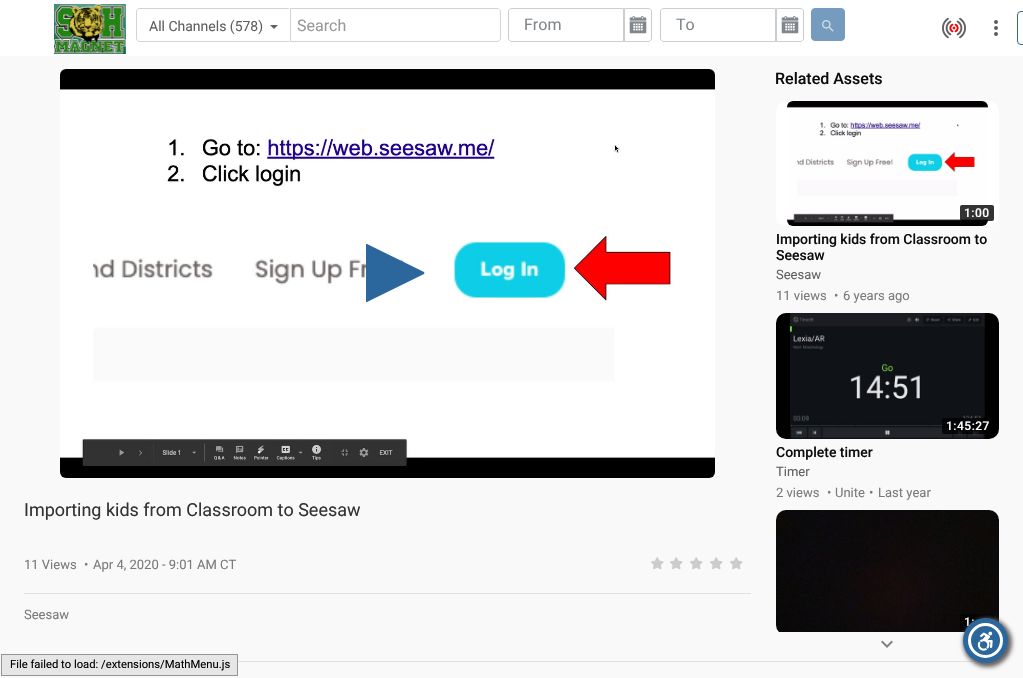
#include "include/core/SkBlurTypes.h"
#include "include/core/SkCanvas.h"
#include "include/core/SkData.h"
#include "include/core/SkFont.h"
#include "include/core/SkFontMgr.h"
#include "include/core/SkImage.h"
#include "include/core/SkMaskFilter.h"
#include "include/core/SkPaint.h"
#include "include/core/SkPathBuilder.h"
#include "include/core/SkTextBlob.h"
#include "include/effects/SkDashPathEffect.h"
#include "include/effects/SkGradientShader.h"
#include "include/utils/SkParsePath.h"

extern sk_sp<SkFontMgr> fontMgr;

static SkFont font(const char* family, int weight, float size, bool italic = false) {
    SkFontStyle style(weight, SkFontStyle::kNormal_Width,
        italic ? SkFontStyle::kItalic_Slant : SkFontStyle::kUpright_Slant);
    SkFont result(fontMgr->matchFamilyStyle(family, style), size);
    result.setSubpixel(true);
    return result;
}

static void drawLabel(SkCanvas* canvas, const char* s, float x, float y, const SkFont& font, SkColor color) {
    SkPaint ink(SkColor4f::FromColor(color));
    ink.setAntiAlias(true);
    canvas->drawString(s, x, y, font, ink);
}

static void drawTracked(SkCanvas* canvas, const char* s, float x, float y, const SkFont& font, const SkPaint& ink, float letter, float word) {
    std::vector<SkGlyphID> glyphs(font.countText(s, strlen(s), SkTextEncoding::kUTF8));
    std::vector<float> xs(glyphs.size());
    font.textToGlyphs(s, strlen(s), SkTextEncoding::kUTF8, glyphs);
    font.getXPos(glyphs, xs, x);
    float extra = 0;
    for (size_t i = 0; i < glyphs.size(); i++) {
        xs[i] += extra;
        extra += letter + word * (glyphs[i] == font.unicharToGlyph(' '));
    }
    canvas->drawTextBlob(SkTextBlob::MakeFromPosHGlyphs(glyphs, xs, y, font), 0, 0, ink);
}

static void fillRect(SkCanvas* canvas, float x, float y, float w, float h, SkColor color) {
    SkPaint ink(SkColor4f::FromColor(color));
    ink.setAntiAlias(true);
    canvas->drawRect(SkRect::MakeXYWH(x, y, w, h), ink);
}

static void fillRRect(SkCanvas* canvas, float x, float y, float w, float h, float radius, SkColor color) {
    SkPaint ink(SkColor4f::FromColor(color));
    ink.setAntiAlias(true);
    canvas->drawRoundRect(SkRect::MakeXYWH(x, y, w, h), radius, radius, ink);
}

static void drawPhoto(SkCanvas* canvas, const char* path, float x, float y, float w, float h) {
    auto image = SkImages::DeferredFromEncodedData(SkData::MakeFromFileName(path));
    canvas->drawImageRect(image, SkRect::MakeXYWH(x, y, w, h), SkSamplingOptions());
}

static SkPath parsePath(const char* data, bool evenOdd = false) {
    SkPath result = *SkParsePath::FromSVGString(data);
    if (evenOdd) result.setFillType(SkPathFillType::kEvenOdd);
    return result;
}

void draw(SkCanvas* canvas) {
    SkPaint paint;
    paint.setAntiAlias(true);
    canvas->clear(0xFFF9F9F9);
    fillRect(canvas, 0, 0, 1023, 56, 0xFFFFFFFF);
    drawPhoto(canvas, "assets/img1.png", 54, 4, 72, 50);
    paint.setColor(0xFFD3D3D3);
    canvas->drawPath(parsePath("M140 8H288C289 8 290 9 290 10V40C290 41 289 42 288 42H140C138 42 136 40 136 38V12C136 10 138 8 140 8ZM140 9H288C289 9 290 9 290 10V40C290 41 289 41 288 41H140C138 41 137 40 137 38V12C137 10 138 9 140 9Z", true), paint);
    SkFont font1 = font("Roboto", 400, 14);
    drawLabel(canvas, "All Channels (578)", 149, 31, font1, 0xFF606060);
    paint.setColor(0xFF606060);
    canvas->drawPath(parsePath("M270 25H278L274 29Z"), paint);
    paint.setStroke(true);
    paint.setStrokeWidth(1);
    paint.setColor(0xFFD3D3D3);
    canvas->drawPath(parsePath("M290.5 8.5H497C499 8.5 500.5 10 500.5 12V38C500.5 40 499 41.5 497 41.5H290.5Z"), paint);
    SkFont font2 = font("Roboto", 400, 16);
    drawLabel(canvas, "Search", 297, 31, font2, 0xFF999999);
    paint.setColor(0xFFCCCCCC);
    canvas->drawPath(parsePath("M512 8.5H623.5V41.5H512C510 41.5 508.5 40 508.5 38V12C508.5 10 510 8.5 512 8.5Z"), paint);
    canvas->drawPath(parsePath("M624.5 8.5H648C650 8.5 651.5 10 651.5 12V38C651.5 40 650 41.5 648 41.5H624.5Z"), paint);
    drawPhoto(canvas, "assets/img2.png", 629, 16, 18, 18);
    drawLabel(canvas, "From", 524, 30, font2, 0xFF80868B);
    canvas->drawPath(parsePath("M664 8.5H775.5V41.5H664C662 41.5 660.5 40 660.5 38V12C660.5 10 662 8.5 664 8.5Z"), paint);
    canvas->drawPath(parsePath("M776.5 8.5H800C802 8.5 803.5 10 803.5 12V38C803.5 40 802 41.5 800 41.5H776.5Z"), paint);
    drawPhoto(canvas, "assets/img2.png", 781, 16, 18, 18);
    drawLabel(canvas, "To", 676, 30, font2, 0xFF80868B);
    paint.setStroke(false);
    paint.setColor(0xFF759CBF);
    canvas->drawRoundRect(SkRect::MakeXYWH(811.5f, 8.5f, 33, 32), 3.5f, 3.5f, paint);
    paint.setStroke(true);
    canvas->drawRoundRect(SkRect::MakeXYWH(811.5f, 8.5f, 33, 32), 3.5f, 3.5f, paint);
    drawPhoto(canvas, "assets/img3.png", 822, 20, 12, 12);
    drawPhoto(canvas, "assets/img4.png", 942, 17, 24, 22);
    drawPhoto(canvas, "assets/img5.png", 994, 20, 4, 16);
    paint.setColor(0xFF2B679C);
    canvas->drawRoundRect(SkRect::MakeXYWH(1017.5f, 11.5f, 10, 33), 3.5f, 3.5f, paint);
    drawPhoto(canvas, "assets/img6.png", 60, 69, 655, 409);
    paint.setStroke(false);
    canvas->drawPath(parsePath("M367 302H366V244H367L424 272C424 273 425 273 424 274Z"), paint);
    fillRect(canvas, 24, 593, 727, 1, 0xFFE0E0E0);
    SkFont font3 = font("Roboto", 400, 18);
    drawLabel(canvas, "Importing kids from Classroom to Seesaw", 24, 516, font3, 0xFF333333);
    SkFont font4 = font("Roboto", 400, 13);
    drawLabel(canvas, "11 Views", 24, 569, font4, 0xFF7A7A7A);
    drawLabel(canvas, "•", 84, 569, font4, 0xFF7A7A7A);
    drawLabel(canvas, "Apr 4, 2020 - 9:01 AM CT", 93, 569, font4, 0xFF7A7A7A);
    drawPhoto(canvas, "assets/img7.png", 651, 557, 13, 13);
    drawPhoto(canvas, "assets/img7.png", 670, 557, 13, 13);
    drawPhoto(canvas, "assets/img7.png", 690, 557, 13, 13);
    drawPhoto(canvas, "assets/img7.png", 710, 557, 13, 13);
    drawPhoto(canvas, "assets/img7.png", 730, 557, 13, 13);
    drawLabel(canvas, "Seesaw", 24, 619, font4, 0xFF7A7A7A);
    SkFont font5 = font("Roboto", 500, 16);
    drawLabel(canvas, "Related Assets", 775, 84, font5, 0xFF0D0D0D);
    fillRRect(canvas, 776, 101, 223, 125, 10, 0xFFFFFFFF);
    drawPhoto(canvas, "assets/img8.png", 787, 101, 201, 125);
    fillRRect(canvas, 960, 205, 34, 16, 2, 0xCC000000);
    SkFont font6 = font("Roboto", 500, 12);
    paint.setColor(0xFFFFFFFF);
    drawTracked(canvas, "1:00", 964, 217, font6, paint, 0.5f, 0);
    SkFont font7 = font("Roboto", 500, 14);
    drawLabel(canvas, "Importing kids from Classroom to", 776, 244, font7, 0xFF0D0D0D);
    drawLabel(canvas, "Seesaw", 776, 260, font7, 0xFF0D0D0D);
    drawLabel(canvas, "Seesaw", 776, 279, font4, 0xFF606060);
    drawLabel(canvas, "11 views", 776, 300, font4, 0xFF7A7A7A);
    drawLabel(canvas, "•", 834, 300, font4, 0xFF7A7A7A);
    drawLabel(canvas, "6 years ago", 843, 300, font4, 0xFF7A7A7A);
    fillRRect(canvas, 776, 313, 223, 126, 10, 0xFFFFFFFF);
    drawPhoto(canvas, "assets/img9.png", 776, 313, 223, 126);
    fillRRect(canvas, 942, 418, 52, 16, 2, 0xCC000000);
    drawTracked(canvas, "1:45:27", 946, 430, font6, paint, 0.5f, 0);
    drawLabel(canvas, "Complete timer", 776, 457, font7, 0xFF0D0D0D);
    drawLabel(canvas, "Timer", 776, 476, font4, 0xFF606060);
    drawLabel(canvas, "2 views", 776, 497, font4, 0xFF7A7A7A);
    drawLabel(canvas, "•", 827, 497, font4, 0xFF7A7A7A);
    drawLabel(canvas, "Unite", 835, 497, font4, 0xFF7A7A7A);
    drawLabel(canvas, "•", 869, 497, font4, 0xFF7A7A7A);
    drawLabel(canvas, "Last year", 878, 497, font4, 0xFF7A7A7A);
    fillRRect(canvas, 776, 510, 223, 125, 10, 0xFFFFFFFF);
    drawPhoto(canvas, "assets/img10.png", 776, 510, 223, 122);
    fillRRect(canvas, 960, 614, 34, 16, 2, 0xCC000000);
    drawTracked(canvas, "1:", 964, 626, font6, paint, 0.5f, 0);
    fillRect(canvas, 779, 632, 191, 3, 0xFFF9F9F9);
    drawPhoto(canvas, "assets/img11.png", 881, 640, 12, 8);
    fillRect(canvas, 238, 661, 761, 1, 0xFFE0E0E0);
    paint.setColor(0xFFE6E6E6);
    canvas->drawRect(SkRect::MakeXYWH(1.5f, 654.5f, 236, 21), paint);
    paint.setStroke(true);
    paint.setColor(0xFF959595);
    canvas->drawRect(SkRect::MakeXYWH(1.5f, 654.5f, 236, 21), paint);
    SkFont font8 = font("Roboto", 400, 11.25f);
    drawLabel(canvas, "File failed to load: /extensions/MathMenu.js", 10, 668, font8, 0xFF000000);
    paint.setStroke(false);
    paint.setColor(0xFF676161);
    paint.setMaskFilter(SkMaskFilter::MakeBlur(kNormal_SkBlurStyle, 2));
    canvas->drawRoundRect(SkRect::MakeXYWH(963, 618, 49, 49), 24.5f, 24.5f, paint);
    paint.setMaskFilter(nullptr);
    paint.setColor(0xFF2B679C);
    canvas->drawCircle(985.5f, 640.5f, 22.5f, paint);
    paint.setStroke(true);
    paint.setStrokeWidth(3);
    paint.setColor(0xFFFFFFFF);
    canvas->drawCircle(985.5f, 640.5f, 16, paint);
    drawPhoto(canvas, "assets/img12.png", 977, 631, 16, 20);
}
